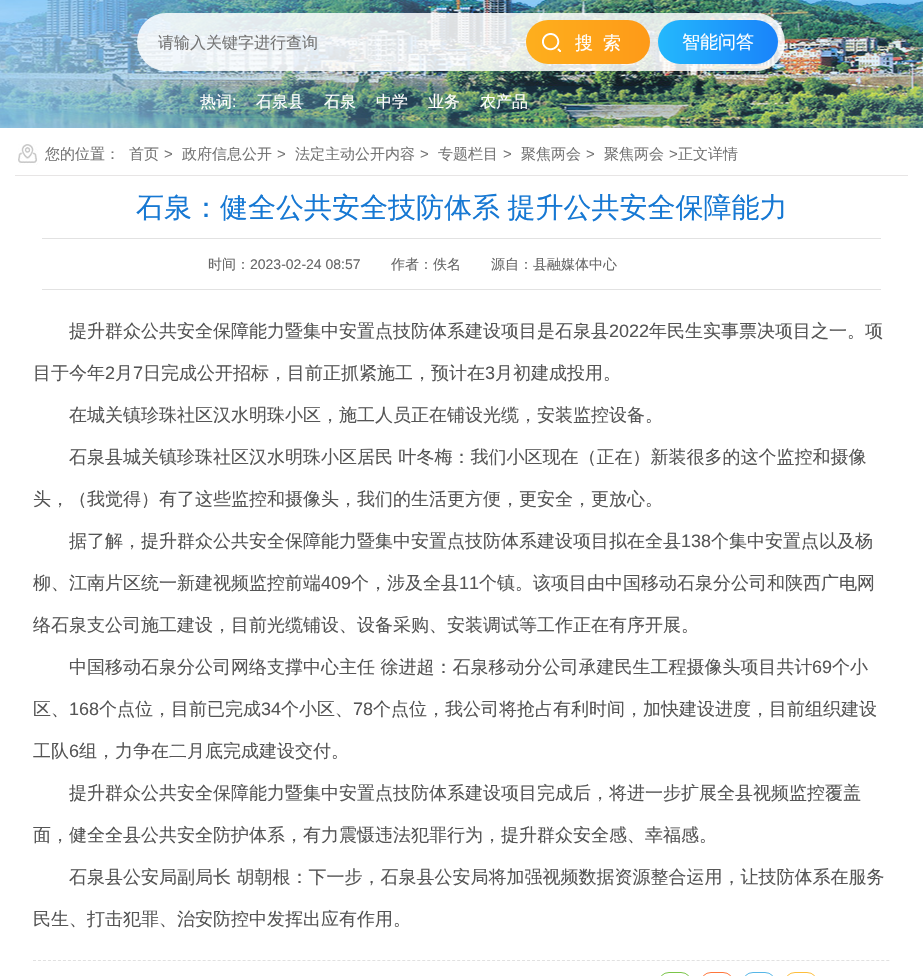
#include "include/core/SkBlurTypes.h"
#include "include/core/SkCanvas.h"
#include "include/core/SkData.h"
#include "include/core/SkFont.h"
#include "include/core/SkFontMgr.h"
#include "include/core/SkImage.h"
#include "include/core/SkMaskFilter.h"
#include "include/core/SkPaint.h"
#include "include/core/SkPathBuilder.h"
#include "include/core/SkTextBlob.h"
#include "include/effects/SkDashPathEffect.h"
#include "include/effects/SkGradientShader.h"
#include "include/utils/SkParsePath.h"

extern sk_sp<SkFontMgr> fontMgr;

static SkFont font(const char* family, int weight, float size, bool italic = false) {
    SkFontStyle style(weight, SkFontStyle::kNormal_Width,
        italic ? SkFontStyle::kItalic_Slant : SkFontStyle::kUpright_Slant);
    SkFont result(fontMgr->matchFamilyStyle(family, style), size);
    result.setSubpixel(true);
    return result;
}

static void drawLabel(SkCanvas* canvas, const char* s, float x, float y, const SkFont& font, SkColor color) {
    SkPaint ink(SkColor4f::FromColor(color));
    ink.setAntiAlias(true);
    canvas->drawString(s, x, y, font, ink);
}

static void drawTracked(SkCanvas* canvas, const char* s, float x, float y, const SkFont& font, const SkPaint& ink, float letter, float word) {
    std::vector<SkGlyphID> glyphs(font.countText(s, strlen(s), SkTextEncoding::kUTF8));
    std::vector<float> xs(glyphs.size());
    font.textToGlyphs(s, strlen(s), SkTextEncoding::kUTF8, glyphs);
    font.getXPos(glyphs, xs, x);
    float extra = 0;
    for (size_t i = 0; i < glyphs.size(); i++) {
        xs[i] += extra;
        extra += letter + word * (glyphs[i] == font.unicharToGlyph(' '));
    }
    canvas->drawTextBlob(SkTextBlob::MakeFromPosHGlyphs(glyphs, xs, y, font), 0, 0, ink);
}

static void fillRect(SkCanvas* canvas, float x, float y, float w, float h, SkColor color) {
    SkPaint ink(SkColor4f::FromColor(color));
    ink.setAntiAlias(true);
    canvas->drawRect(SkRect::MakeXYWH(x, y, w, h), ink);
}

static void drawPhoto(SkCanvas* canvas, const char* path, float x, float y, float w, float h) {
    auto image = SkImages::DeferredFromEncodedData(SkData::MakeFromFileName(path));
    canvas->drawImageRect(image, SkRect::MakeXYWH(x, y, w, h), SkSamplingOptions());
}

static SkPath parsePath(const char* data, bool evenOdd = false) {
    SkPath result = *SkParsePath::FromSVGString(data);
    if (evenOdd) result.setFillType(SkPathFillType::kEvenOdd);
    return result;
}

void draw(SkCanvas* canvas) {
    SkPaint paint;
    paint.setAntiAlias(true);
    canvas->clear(0xFFFFFFFF);
    drawPhoto(canvas, "assets/img1.png", 0, 0, 923, 128);
    drawPhoto(canvas, "assets/img2.png", 137, 13, 648, 58);
    SkFont font1 = font("WenQuanYi Zen Hei", 500, 16);
    drawLabel(canvas, "请输入关键字进行查询", 158, 48, font1, 0xFF757575);
    {
        const SkColor colors[] = {0xFFFEAF1D, 0xFFFE9A18};
        const float stops[] = {0, 1};
        const SkPoint ends[] = {{526, 42}, {650, 42}};
        paint.setShader(SkGradientShader::MakeLinear(ends, colors, stops, 2, SkTileMode::kClamp));
        paint.setAlpha(255);
    }
    canvas->drawRoundRect(SkRect::MakeXYWH(526, 20, 124, 44), 22, 22, paint);
    drawPhoto(canvas, "assets/img3.png", 542, 33, 19, 19);
    SkFont font2 = font("WenQuanYi Zen Hei", 500, 18);
    paint.setShader(nullptr);
    paint.setColor(0xFFFFFFFF);
    drawTracked(canvas, "搜索", 575, 49, font2, paint, 10, 0);
    {
        const SkColor colors[] = {0xFF24B8FC, 0xFF1983FA};
        const float stops[] = {0, 1};
        const SkPoint ends[] = {{658, 42}, {778, 42}};
        paint.setShader(SkGradientShader::MakeLinear(ends, colors, stops, 2, SkTileMode::kClamp));
        paint.setAlpha(255);
    }
    canvas->drawRoundRect(SkRect::MakeXYWH(658, 20, 120, 44), 22, 22, paint);
    drawLabel(canvas, "智能问答", 682, 48, font2, 0xFFFFFFFF);
    drawPhoto(canvas, "assets/img4.png", 170, 86, 582, 32);
    drawLabel(canvas, "热词", 200, 107, font1, 0xFFFFFFFF);
    SkFont font3 = font("Liberation Sans", 400, 16);
    drawLabel(canvas, ":", 232, 107, font3, 0xFFFFFFFF);
    drawLabel(canvas, "石泉县", 256, 107, font1, 0xFFFFFFFF);
    drawLabel(canvas, "石泉", 324, 107, font1, 0xFFFFFFFF);
    drawLabel(canvas, "中学", 376, 107, font1, 0xFFFFFFFF);
    drawLabel(canvas, "业务", 428, 107, font1, 0xFFFFFFFF);
    drawLabel(canvas, "农产品", 480, 107, font1, 0xFFFFFFFF);
    drawPhoto(canvas, "assets/img5.png", 18, 144, 20, 21);
    fillRect(canvas, 15, 175, 893, 1, 0xFFE7E5E5);
    SkFont font4 = font("WenQuanYi Zen Hei", 500, 15);
    drawLabel(canvas, "您的位置：", 45, 159, font4, 0xFF757575);
    drawLabel(canvas, "首页", 129, 159, font4, 0xFF757575);
    SkFont font5 = font("Liberation Sans", 400, 15);
    drawLabel(canvas, ">", 164, 159, font5, 0xFF757575);
    drawLabel(canvas, "政府信息公开", 182, 159, font4, 0xFF757575);
    drawLabel(canvas, ">", 277, 159, font5, 0xFF757575);
    drawLabel(canvas, "法定主动公开内容", 295, 159, font4, 0xFF757575);
    drawLabel(canvas, ">", 420, 159, font5, 0xFF757575);
    drawLabel(canvas, "专题栏目", 438, 159, font4, 0xFF757575);
    drawLabel(canvas, ">", 503, 159, font5, 0xFF757575);
    drawLabel(canvas, "聚焦两会", 521, 159, font4, 0xFF757575);
    drawLabel(canvas, ">", 586, 159, font5, 0xFF757575);
    drawLabel(canvas, "聚焦两会", 604, 159, font4, 0xFF757575);
    drawLabel(canvas, ">", 669, 159, font5, 0xFF757575);
    drawLabel(canvas, "正文详情", 678, 159, font4, 0xFF757575);
    SkFont font6 = font("WenQuanYi Zen Hei", 500, 28);
    paint.setShader(nullptr);
    paint.setColor(0xFF1678D3);
    drawTracked(canvas, "石泉：健全公共安全技防体系 提升公共安全保障能力", 136, 217, font6, paint, 0, -1);
    fillRect(canvas, 42, 238, 839, 1, 0xFFE2E2E2);
    fillRect(canvas, 42, 289, 839, 1, 0xFFE2E2E2);
    SkFont font7 = font("WenQuanYi Zen Hei", 500, 14);
    drawLabel(canvas, "时间：", 208, 269, font7, 0xFF666666);
    SkFont font8 = font("Liberation Sans", 400, 14);
    drawLabel(canvas, "2023-02-24 08:57", 250, 269, font8, 0xFF666666);
    drawLabel(canvas, "作者：佚名", 391, 269, font7, 0xFF666666);
    drawLabel(canvas, "源自：县融媒体中心", 491, 269, font7, 0xFF666666);
    drawLabel(canvas, "提升群众公共安全保障能力暨集中安置点技防体系建设项目是石泉县", 69, 337, font2, 0xFF555555);
    SkFont font9 = font("Liberation Sans", 400, 18);
    drawLabel(canvas, "2022", 609, 337, font9, 0xFF555555);
    drawLabel(canvas, "年民生实事票决项目之一。项", 649, 337, font2, 0xFF555555);
    drawLabel(canvas, "目于今年", 33, 379, font2, 0xFF555555);
    drawLabel(canvas, "2", 105, 379, font9, 0xFF555555);
    drawLabel(canvas, "月", 115, 379, font2, 0xFF555555);
    drawLabel(canvas, "7", 133, 379, font9, 0xFF555555);
    drawLabel(canvas, "日完成公开招标，目前正抓紧施工，预计在", 143, 379, font2, 0xFF555555);
    drawLabel(canvas, "3", 485, 379, font9, 0xFF555555);
    drawLabel(canvas, "月初建成投用。", 495, 379, font2, 0xFF555555);
    drawLabel(canvas, "在城关镇珍珠社区汉水明珠小区，施工人员正在铺设光缆，安装监控设备。", 69, 421, font2, 0xFF555555);
    drawLabel(canvas, "石泉县城关镇珍珠社区汉水明珠小区居民 叶冬梅：我们小区现在（正在）新装很多的这个监控和摄像", 69, 463, font2, 0xFF555555);
    drawLabel(canvas, "头，（我觉得）有了这些监控和摄像头，我们的生活更方便，更安全，更放心。", 33, 505, font2, 0xFF555555);
    drawLabel(canvas, "据了解，提升群众公共安全保障能力暨集中安置点技防体系建设项目拟在全县", 69, 547, font2, 0xFF555555);
    drawLabel(canvas, "138", 681, 547, font9, 0xFF555555);
    drawLabel(canvas, "个集中安置点以及杨", 711, 547, font2, 0xFF555555);
    drawLabel(canvas, "柳、江南片区统一新建视频监控前端", 33, 589, font2, 0xFF555555);
    drawLabel(canvas, "409", 321, 589, font9, 0xFF555555);
    drawLabel(canvas, "个，涉及全县", 351, 589, font2, 0xFF555555);
    drawLabel(canvas, "11", 459, 589, font9, 0xFF555555);
    drawLabel(canvas, "个镇。该项目由中国移动石泉分公司和陕西广电网", 479, 589, font2, 0xFF555555);
    drawLabel(canvas, "络石泉支公司施工建设，目前光缆铺设、设备采购、安装调试等工作正在有序开展。", 33, 631, font2, 0xFF555555);
    drawLabel(canvas, "中国移动石泉分公司网络支撑中心主任 徐进超：石泉移动分公司承建民生工程摄像头项目共计", 69, 673, font2, 0xFF555555);
    drawLabel(canvas, "69", 812, 673, font9, 0xFF555555);
    drawLabel(canvas, "个小", 832, 673, font2, 0xFF555555);
    drawLabel(canvas, "区、", 33, 715, font2, 0xFF555555);
    drawLabel(canvas, "168", 69, 715, font9, 0xFF555555);
    drawLabel(canvas, "个点位，目前已完成", 99, 715, font2, 0xFF555555);
    drawLabel(canvas, "34", 261, 715, font9, 0xFF555555);
    drawLabel(canvas, "个小区、", 281, 715, font2, 0xFF555555);
    drawLabel(canvas, "78", 353, 715, font9, 0xFF555555);
    drawLabel(canvas, "个点位，我公司将抢占有利时间，加快建设进度，目前组织建设", 373, 715, font2, 0xFF555555);
    drawLabel(canvas, "工队", 33, 757, font2, 0xFF555555);
    drawLabel(canvas, "6", 69, 757, font9, 0xFF555555);
    drawLabel(canvas, "组，力争在二月底完成建设交付。", 79, 757, font2, 0xFF555555);
    drawLabel(canvas, "提升群众公共安全保障能力暨集中安置点技防体系建设项目完成后，将进一步扩展全县视频监控覆盖", 69, 799, font2, 0xFF555555);
    drawLabel(canvas, "面，健全全县公共安全防护体系，有力震慑违法犯罪行为，提升群众安全感、幸福感。", 33, 841, font2, 0xFF555555);
    drawLabel(canvas, "石泉县公安局副局长 胡朝根：下一步，石泉县公安局将加强视频数据资源整合运用，让技防体系在服务", 69, 883, font2, 0xFF555555);
    drawLabel(canvas, "民生、打击犯罪、治安防控中发挥出应有作用。", 33, 925, font2, 0xFF555555);
    paint.setStroke(true);
    paint.setStrokeWidth(1);
    paint.setColor(0xFFE1E1E1);
    paint.setPathEffect(SkDashPathEffect::Make({{3, 1.99f}}, 0));
    canvas->drawPath(parsePath("M33 960.5H890"), paint);
    paint.setPathEffect(nullptr);
    paint.setColor(0xFF7BC549);
    canvas->drawRoundRect(SkRect::MakeXYWH(658.5f, 972.5f, 33, 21), 16.5f, 16.5f, paint);
    paint.setColor(0xFFFF763B);
    canvas->drawRoundRect(SkRect::MakeXYWH(700.5f, 972.5f, 33, 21), 16.5f, 16.5f, paint);
    paint.setColor(0xFF56B6E7);
    canvas->drawRoundRect(SkRect::MakeXYWH(742.5f, 972.5f, 33, 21), 16.5f, 16.5f, paint);
    paint.setColor(0xFFFDBE3D);
    canvas->drawRoundRect(SkRect::MakeXYWH(784.5f, 972.5f, 33, 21), 16.5f, 16.5f, paint);
}
